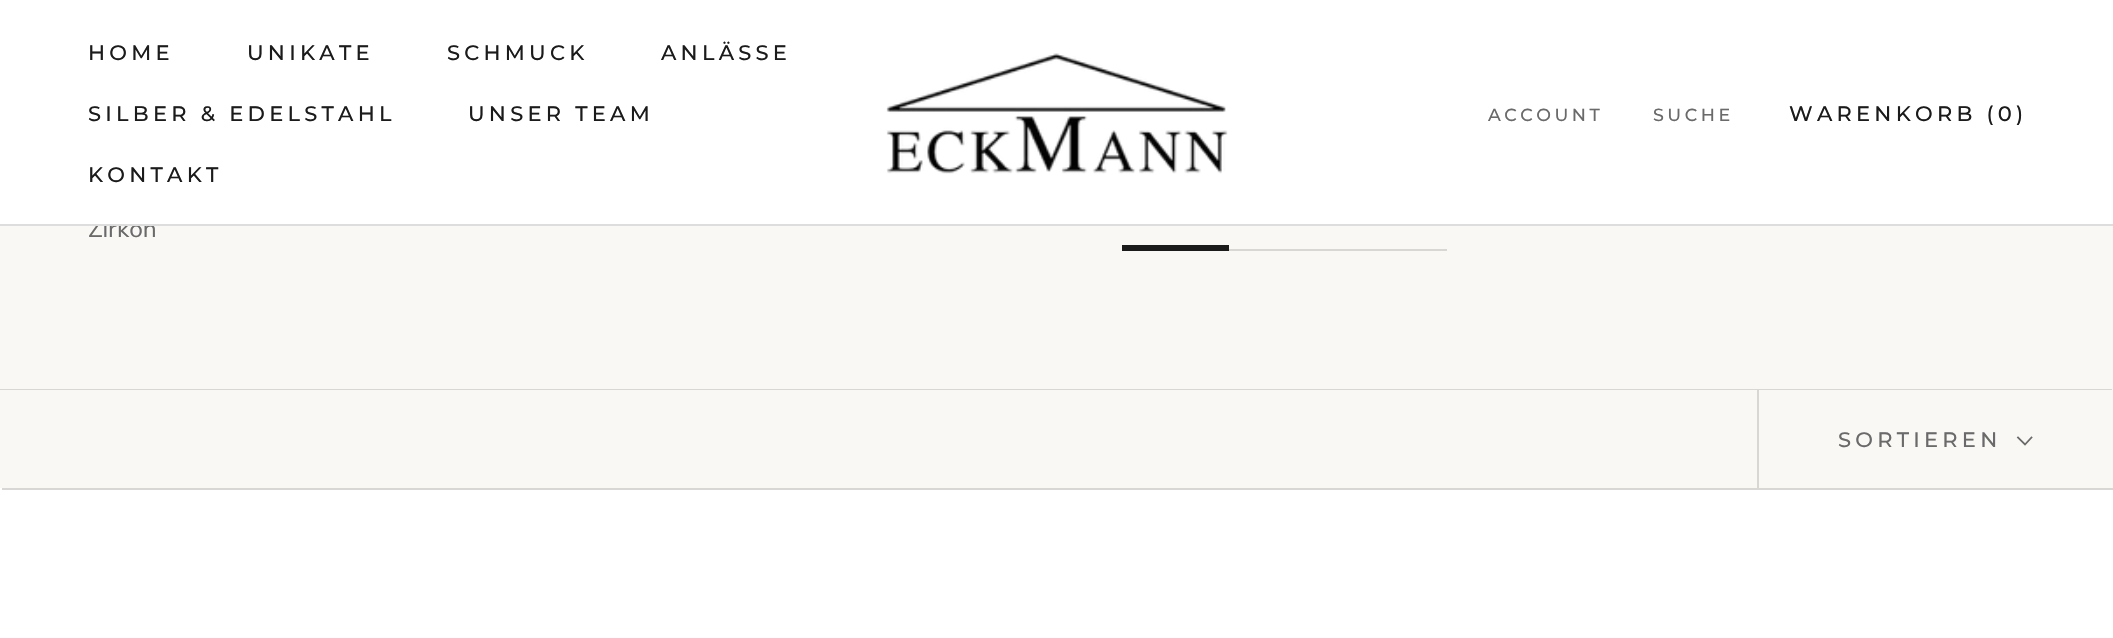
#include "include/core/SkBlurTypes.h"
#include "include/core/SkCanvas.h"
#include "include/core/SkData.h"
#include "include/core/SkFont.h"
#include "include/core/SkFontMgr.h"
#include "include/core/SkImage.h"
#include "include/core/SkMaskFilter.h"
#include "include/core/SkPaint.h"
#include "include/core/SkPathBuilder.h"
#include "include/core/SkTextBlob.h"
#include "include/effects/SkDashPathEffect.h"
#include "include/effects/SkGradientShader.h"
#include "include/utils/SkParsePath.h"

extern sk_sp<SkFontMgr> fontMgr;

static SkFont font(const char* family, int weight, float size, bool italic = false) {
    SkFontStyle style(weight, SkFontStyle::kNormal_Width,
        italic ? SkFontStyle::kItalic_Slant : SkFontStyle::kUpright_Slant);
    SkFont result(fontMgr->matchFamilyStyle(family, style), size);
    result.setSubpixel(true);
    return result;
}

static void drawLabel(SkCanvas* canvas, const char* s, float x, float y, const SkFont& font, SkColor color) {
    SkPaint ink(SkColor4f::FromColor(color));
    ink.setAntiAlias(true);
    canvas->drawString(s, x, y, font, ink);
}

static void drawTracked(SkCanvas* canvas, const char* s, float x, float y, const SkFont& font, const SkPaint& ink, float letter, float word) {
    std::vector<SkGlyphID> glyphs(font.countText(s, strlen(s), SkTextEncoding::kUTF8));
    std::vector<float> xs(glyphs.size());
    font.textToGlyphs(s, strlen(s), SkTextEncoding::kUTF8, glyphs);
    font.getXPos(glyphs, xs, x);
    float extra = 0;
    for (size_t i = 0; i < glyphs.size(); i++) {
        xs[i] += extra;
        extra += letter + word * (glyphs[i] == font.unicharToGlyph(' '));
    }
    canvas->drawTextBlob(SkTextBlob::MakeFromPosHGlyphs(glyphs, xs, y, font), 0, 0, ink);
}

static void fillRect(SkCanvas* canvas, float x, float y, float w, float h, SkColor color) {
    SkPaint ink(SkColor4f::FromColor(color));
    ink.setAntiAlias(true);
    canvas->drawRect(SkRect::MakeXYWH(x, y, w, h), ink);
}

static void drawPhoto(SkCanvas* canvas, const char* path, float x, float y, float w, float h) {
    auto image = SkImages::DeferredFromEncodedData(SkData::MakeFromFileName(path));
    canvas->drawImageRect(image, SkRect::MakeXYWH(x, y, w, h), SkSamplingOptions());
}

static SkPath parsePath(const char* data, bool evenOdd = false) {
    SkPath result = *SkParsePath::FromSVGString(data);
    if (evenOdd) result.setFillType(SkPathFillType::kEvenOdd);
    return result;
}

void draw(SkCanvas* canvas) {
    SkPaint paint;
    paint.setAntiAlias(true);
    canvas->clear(0xFFFAF8F5);
    SkFont font1 = font("Nunito Sans", 400, 24.5f);
    drawLabel(canvas, "Zirkon", 88, 237, font1, 0xFF6A6A6A);
    fillRect(canvas, 0, 0, 2113, 224, 0xFFFFFFFF);
    fillRect(canvas, 0, 224, 2113, 2, 0xFFDDDDDD);
    SkFont font2 = font("Montserrat", 500, 21);
    paint.setColor(0xFF1C1B1B);
    drawTracked(canvas, "HOME", 88, 60, font2, paint, 4.25f, 0);
    drawTracked(canvas, "UNIKATE", 247, 60, font2, paint, 4.25f, 0);
    drawTracked(canvas, "SCHMUCK", 447, 60, font2, paint, 4.25f, 0);
    drawTracked(canvas, "ANLÄSSE", 661, 60, font2, paint, 4.25f, 0);
    drawTracked(canvas, "SILBER & EDELSTAHL", 88, 121, font2, paint, 4.25f, 0);
    drawTracked(canvas, "UNSER TEAM", 468, 121, font2, paint, 4.25f, 0);
    drawTracked(canvas, "KONTAKT", 88, 182, font2, paint, 4.25f, 0);
    drawPhoto(canvas, "assets/img1.png", 886, 53, 342, 121);
    SkFont font3 = font("Montserrat", 500, 17.5f);
    paint.setColor(0xFF6A6A6A);
    drawTracked(canvas, "ACCOUNT", 1488, 121, font3, paint, 3.5f, 0);
    drawTracked(canvas, "SUCHE", 1653, 121, font3, paint, 3.5f, 0);
    paint.setColor(0xFF1C1B1B);
    drawTracked(canvas, "WARENKORB (0)", 1789, 121, font2, paint, 4.25f, 0);
    fillRect(canvas, 1122, 245, 107, 6, 0xFF1C1B1B);
    fillRect(canvas, 1229, 249, 218, 2, 0xFFD9D7D4);
    paint.setColor(0xFFD9D7D4);
    canvas->drawPath(parsePath("M-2 389V487H0V390H2112V389Z"), paint);
    fillRect(canvas, 0, 488, 2113, 150, 0xFFFFFFFF);
    canvas->drawPath(parsePath("M2 488V490H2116V392H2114V488Z"), paint);
    fillRect(canvas, 1757, 390, 2, 98, 0xFFD9D7D4);
    paint.setColor(0xFF6A6A6A);
    drawTracked(canvas, "SORTIEREN", 1838, 447, font2, paint, 4.25f, 0);
    paint.setStroke(true);
    paint.setStrokeWidth(1.8f);
    paint.setStrokeCap(SkPaint::kSquare_Cap);
    canvas->drawPath(parsePath("M2031.5 437.5L2025 444.5L2018 437.5"), paint);
}
